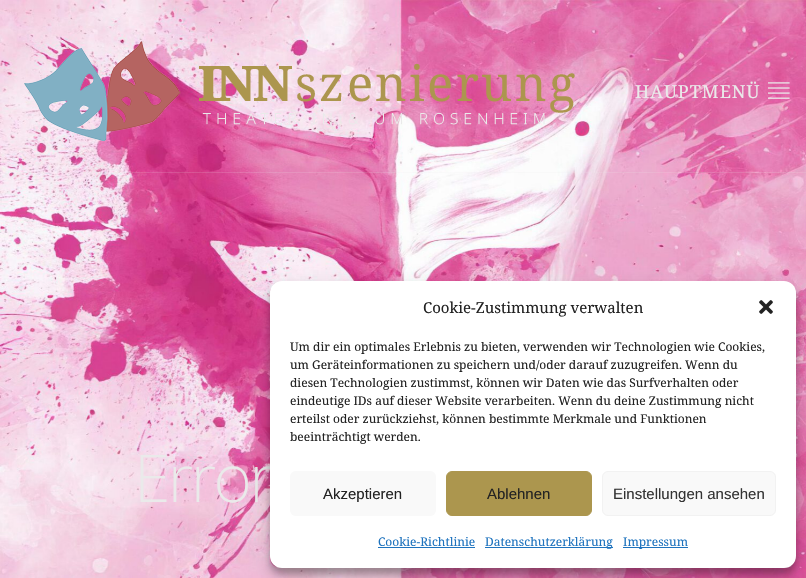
#include "include/core/SkBlurTypes.h"
#include "include/core/SkCanvas.h"
#include "include/core/SkData.h"
#include "include/core/SkFont.h"
#include "include/core/SkFontMgr.h"
#include "include/core/SkImage.h"
#include "include/core/SkMaskFilter.h"
#include "include/core/SkPaint.h"
#include "include/core/SkPathBuilder.h"
#include "include/core/SkTextBlob.h"
#include "include/effects/SkDashPathEffect.h"
#include "include/effects/SkGradientShader.h"
#include "include/utils/SkParsePath.h"

extern sk_sp<SkFontMgr> fontMgr;

static SkFont font(const char* family, int weight, float size, bool italic = false) {
    SkFontStyle style(weight, SkFontStyle::kNormal_Width,
        italic ? SkFontStyle::kItalic_Slant : SkFontStyle::kUpright_Slant);
    SkFont result(fontMgr->matchFamilyStyle(family, style), size);
    result.setSubpixel(true);
    return result;
}

static void drawLabel(SkCanvas* canvas, const char* s, float x, float y, const SkFont& font, SkColor color) {
    SkPaint ink(SkColor4f::FromColor(color));
    ink.setAntiAlias(true);
    canvas->drawString(s, x, y, font, ink);
}

static void drawTracked(SkCanvas* canvas, const char* s, float x, float y, const SkFont& font, const SkPaint& ink, float letter, float word) {
    std::vector<SkGlyphID> glyphs(font.countText(s, strlen(s), SkTextEncoding::kUTF8));
    std::vector<float> xs(glyphs.size());
    font.textToGlyphs(s, strlen(s), SkTextEncoding::kUTF8, glyphs);
    font.getXPos(glyphs, xs, x);
    float extra = 0;
    for (size_t i = 0; i < glyphs.size(); i++) {
        xs[i] += extra;
        extra += letter + word * (glyphs[i] == font.unicharToGlyph(' '));
    }
    canvas->drawTextBlob(SkTextBlob::MakeFromPosHGlyphs(glyphs, xs, y, font), 0, 0, ink);
}

static void fillRect(SkCanvas* canvas, float x, float y, float w, float h, SkColor color) {
    SkPaint ink(SkColor4f::FromColor(color));
    ink.setAntiAlias(true);
    canvas->drawRect(SkRect::MakeXYWH(x, y, w, h), ink);
}

static void fillRRect(SkCanvas* canvas, float x, float y, float w, float h, float radius, SkColor color) {
    SkPaint ink(SkColor4f::FromColor(color));
    ink.setAntiAlias(true);
    canvas->drawRoundRect(SkRect::MakeXYWH(x, y, w, h), radius, radius, ink);
}

static void drawPhoto(SkCanvas* canvas, const char* path, float x, float y, float w, float h) {
    auto image = SkImages::DeferredFromEncodedData(SkData::MakeFromFileName(path));
    canvas->drawImageRect(image, SkRect::MakeXYWH(x, y, w, h), SkSamplingOptions());
}

void draw(SkCanvas* canvas) {
    SkPaint paint;
    paint.setAntiAlias(true);
    canvas->clear(0xFFFFFFFF);
    drawPhoto(canvas, "assets/img3.png", 0, 0, 806, 578);
    drawPhoto(canvas, "assets/img1.png", 24, 41, 551, 100);
    SkFont font1 = font("Noto Serif", 400, 18);
    paint.setColor(0xFFEAEAEA);
    drawTracked(canvas, "HAUPTMENÜ", 635, 98, font1, paint, 1, 0);
    drawPhoto(canvas, "assets/img2.png", 768, 82, 22, 17);
    fillRect(canvas, 10, 172, 796, 1, 0x26EAEAEA);
    SkFont font2 = font("Noto Sans", 200, 66);
    drawTracked(canvas, "Error", 134, 502, font2, paint, -2.5f, 0);
    paint.setColor(0x3B000000);
    paint.setMaskFilter(SkMaskFilter::MakeBlur(kNormal_SkBlurStyle, 3));
    canvas->drawRoundRect(SkRect::MakeXYWH(270, 287, 526, 287), 12, 12, paint);
    paint.setMaskFilter(nullptr);
    paint.setColor(0x30000000);
    paint.setMaskFilter(SkMaskFilter::MakeBlur(kNormal_SkBlurStyle, 10));
    canvas->drawRoundRect(SkRect::MakeXYWH(270, 291, 526, 287), 12, 12, paint);
    paint.setMaskFilter(nullptr);
    fillRRect(canvas, 270, 281, 526, 287, 12, 0xFFFFFFFF);
    SkFont font3 = font("Noto Serif", 400, 15);
    drawLabel(canvas, "Cookie-Zustimmung verwalten", 423, 313, font3, 0xFF222222);
    drawPhoto(canvas, "assets/img4.png", 759, 300, 14, 14);
    SkFont font4 = font("Noto Serif", 400, 12);
    drawLabel(canvas, "Um dir ein optimales Erlebnis zu bieten, verwenden wir Technologien wie Cookies,", 290, 351, font4, 0xFF222222);
    drawLabel(canvas, "um Geräteinformationen zu speichern und/oder darauf zuzugreifen. Wenn du", 290, 369, font4, 0xFF222222);
    drawLabel(canvas, "diesen Technologien zustimmst, können wir Daten wie das Surfverhalten oder", 290, 387, font4, 0xFF222222);
    drawLabel(canvas, "eindeutige IDs auf dieser Website verarbeiten. Wenn du deine Zustimmung nicht", 290, 405, font4, 0xFF222222);
    drawLabel(canvas, "erteilst oder zurückziehst, können bestimmte Merkmale und Funktionen", 290, 423, font4, 0xFF222222);
    drawLabel(canvas, "beeinträchtigt werden.", 290, 441, font4, 0xFF222222);
    fillRRect(canvas, 290, 471, 146, 45, 6, 0xFFF9F9F9);
    SkFont font5 = font("Liberation Sans", 400, 15);
    drawLabel(canvas, "Akzeptieren", 323, 499, font5, 0xFF222222);
    paint.setColor(0xFFAC964E);
    canvas->drawRoundRect(SkRect::MakeXYWH(446.5f, 471.5f, 145, 44), 5.5f, 5.5f, paint);
    paint.setStroke(true);
    paint.setStrokeWidth(1);
    canvas->drawRoundRect(SkRect::MakeXYWH(446.5f, 471.5f, 145, 44), 5.5f, 5.5f, paint);
    drawLabel(canvas, "Ablehnen", 487, 499, font5, 0xFF222222);
    paint.setStroke(false);
    paint.setColor(0xFFF9F9F9);
    canvas->drawRoundRect(SkRect::MakeXYWH(602.5f, 471.5f, 173, 44), 5.5f, 5.5f, paint);
    paint.setStroke(true);
    paint.setColor(0xFFF2F2F2);
    canvas->drawRoundRect(SkRect::MakeXYWH(602.5f, 471.5f, 173, 44), 5.5f, 5.5f, paint);
    drawLabel(canvas, "Einstellungen ansehen", 613, 499, font5, 0xFF333333);
    drawLabel(canvas, "Cookie-Richtlinie", 378, 546, font4, 0xFF1E73BE);
    fillRect(canvas, 378, 547, 97, 1, 0xFF1E73BE);
    fillRect(canvas, 485, 547, 128, 1, 0xFF1E73BE);
    drawLabel(canvas, "Datenschutzerklärung", 485, 546, font4, 0xFF1E73BE);
    fillRect(canvas, 623, 547, 65, 1, 0xFF1E73BE);
    drawLabel(canvas, "Impressum", 623, 546, font4, 0xFF1E73BE);
}
